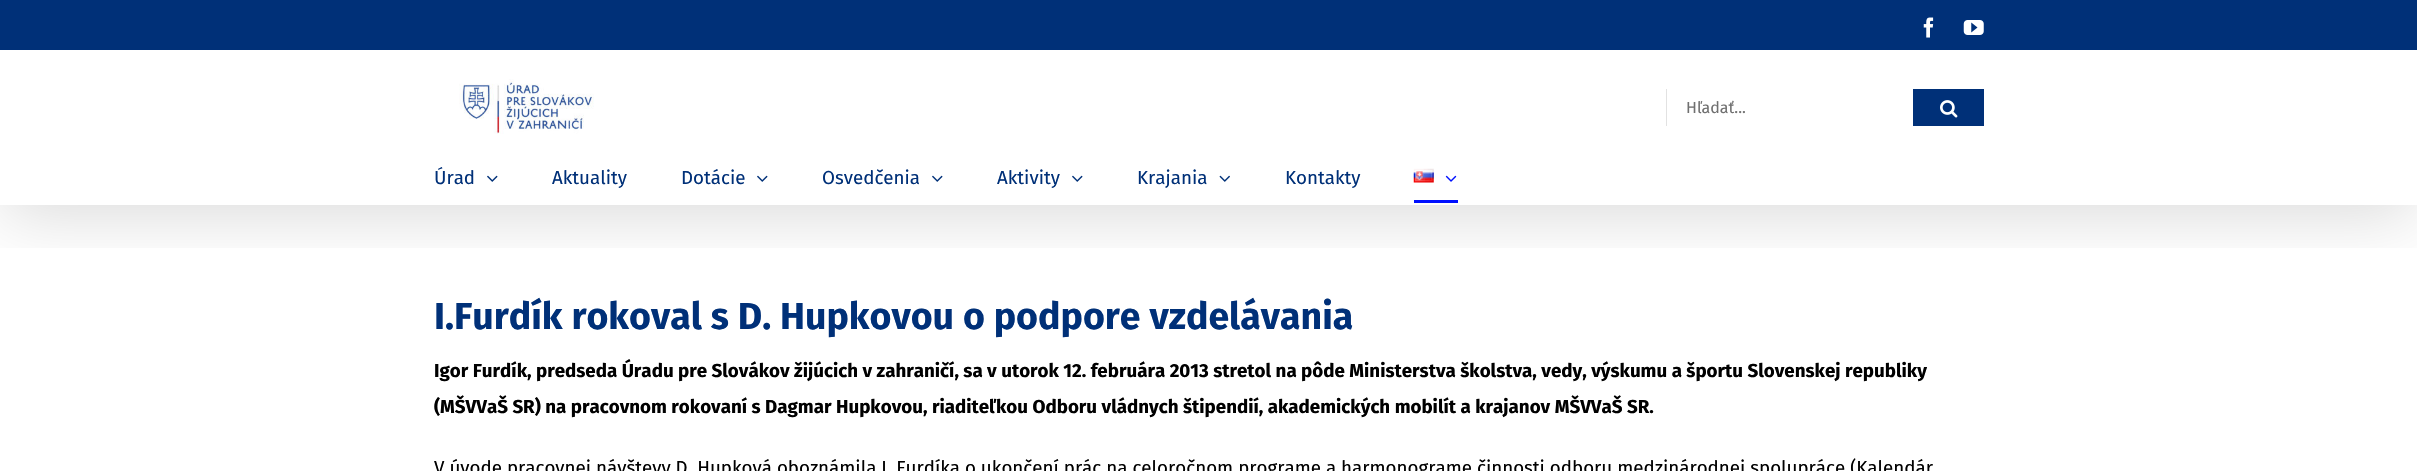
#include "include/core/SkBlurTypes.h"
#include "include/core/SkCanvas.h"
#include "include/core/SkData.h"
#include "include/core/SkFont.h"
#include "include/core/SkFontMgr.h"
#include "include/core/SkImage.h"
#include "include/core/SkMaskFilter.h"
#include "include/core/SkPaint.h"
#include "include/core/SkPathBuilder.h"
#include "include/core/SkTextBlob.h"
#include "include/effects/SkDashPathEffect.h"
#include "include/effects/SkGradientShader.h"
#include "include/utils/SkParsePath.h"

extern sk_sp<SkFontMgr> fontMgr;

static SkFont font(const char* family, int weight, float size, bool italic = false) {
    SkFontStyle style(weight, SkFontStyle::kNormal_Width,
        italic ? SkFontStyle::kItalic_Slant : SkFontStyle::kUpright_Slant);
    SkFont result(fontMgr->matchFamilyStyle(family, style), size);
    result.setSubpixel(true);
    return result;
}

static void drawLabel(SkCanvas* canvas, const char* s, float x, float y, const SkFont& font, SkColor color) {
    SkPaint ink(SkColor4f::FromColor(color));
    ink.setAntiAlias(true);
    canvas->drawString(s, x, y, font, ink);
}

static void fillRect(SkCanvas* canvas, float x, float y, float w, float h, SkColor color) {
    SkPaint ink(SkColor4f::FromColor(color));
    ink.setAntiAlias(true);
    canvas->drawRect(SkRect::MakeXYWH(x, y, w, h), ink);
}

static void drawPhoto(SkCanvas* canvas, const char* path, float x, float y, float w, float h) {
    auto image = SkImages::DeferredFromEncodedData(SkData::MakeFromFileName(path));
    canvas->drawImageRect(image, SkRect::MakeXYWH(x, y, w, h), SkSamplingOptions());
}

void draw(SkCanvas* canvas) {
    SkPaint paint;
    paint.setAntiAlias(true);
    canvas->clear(0xFFFFFFFF);
    canvas->save();
    canvas->clipRect(SkRect::MakeXYWH(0, 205, 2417, 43));
    paint.setColor(0x24000000);
    paint.setMaskFilter(SkMaskFilter::MakeBlur(kNormal_SkBlurStyle, 31));
    canvas->drawRect(SkRect::MakeXYWH(3, 15, 2412, 200), paint);
    paint.setMaskFilter(nullptr);
    canvas->restore();
    fillRect(canvas, 0, 0, 2417, 50, 0xFF003078);
    drawPhoto(canvas, "assets/img1.png", 1923, 17, 11, 21);
    drawPhoto(canvas, "assets/img2.png", 1963, 20, 21, 15);
    drawPhoto(canvas, "assets/img3.png", 459, 79, 135, 55);
    fillRect(canvas, 1666, 89, 1, 37, 0xFFE2E2E2);
    SkFont font1 = font("Fira Sans", 400, 16);
    drawLabel(canvas, "Hľadať...", 1686, 113, font1, 0xFF707070);
    fillRect(canvas, 1913, 89, 71, 37, 0xFF003078);
    drawPhoto(canvas, "assets/img4.png", 1940, 100, 18, 18);
    SkFont font2 = font("Fira Sans", 400, 18.75f);
    drawLabel(canvas, "Úrad", 434, 184, font2, 0xFF003078);
    drawPhoto(canvas, "assets/img5.png", 487, 175, 11, 7);
    drawLabel(canvas, "Aktuality", 552, 184, font2, 0xFF003078);
    drawLabel(canvas, "Dotácie", 681, 184, font2, 0xFF003078);
    drawPhoto(canvas, "assets/img5.png", 757, 175, 11, 7);
    drawLabel(canvas, "Osvedčenia", 822, 184, font2, 0xFF003078);
    drawPhoto(canvas, "assets/img5.png", 932, 175, 11, 7);
    drawLabel(canvas, "Aktivity", 997, 184, font2, 0xFF003078);
    drawPhoto(canvas, "assets/img5.png", 1072, 175, 11, 7);
    drawLabel(canvas, "Krajania", 1137, 184, font2, 0xFF003078);
    drawPhoto(canvas, "assets/img6.png", 1219, 175, 11, 7);
    drawLabel(canvas, "Kontakty", 1285, 184, font2, 0xFF003078);
    drawPhoto(canvas, "assets/img7.png", 1413, 168, 21, 15);
    drawPhoto(canvas, "assets/img8.png", 1445, 175, 12, 7);
    fillRect(canvas, 1414, 200, 44, 3, 0xFF0010FF);
    SkFont font3 = font("Fira Sans", 700, 37.5f);
    drawLabel(canvas, "I.Furdík rokoval s D. Hupkovou o podpore vzdelávania", 434, 329, font3, 0xFF003078);
    SkFont font4 = font("Fira Sans", 700, 18.75f);
    drawLabel(canvas, "Igor Furdík, predseda Úradu pre Slovákov žijúcich v zahraničí, sa v utorok 12. februára 2013 stretol na pôde Ministerstva školstva, vedy, výskumu a športu Slovenskej republiky", 434, 377, font4, 0xFF000000);
    drawLabel(canvas, "(MŠVVaŠ SR) na pracovnom rokovaní s Dagmar Hupkovou, riaditeľkou Odboru vládnych štipendií, akademických mobilít a krajanov MŠVVaŠ SR.", 434, 413, font4, 0xFF000000);
    drawLabel(canvas, "V úvode pracovnej návštevy D. Hupková oboznámila I. Furdíka o ukončení prác na celoročnom programe a harmonograme činnosti odboru medzinárodnej spolupráce (Kalendár", 434, 474, font2, 0xFF000000);
}
